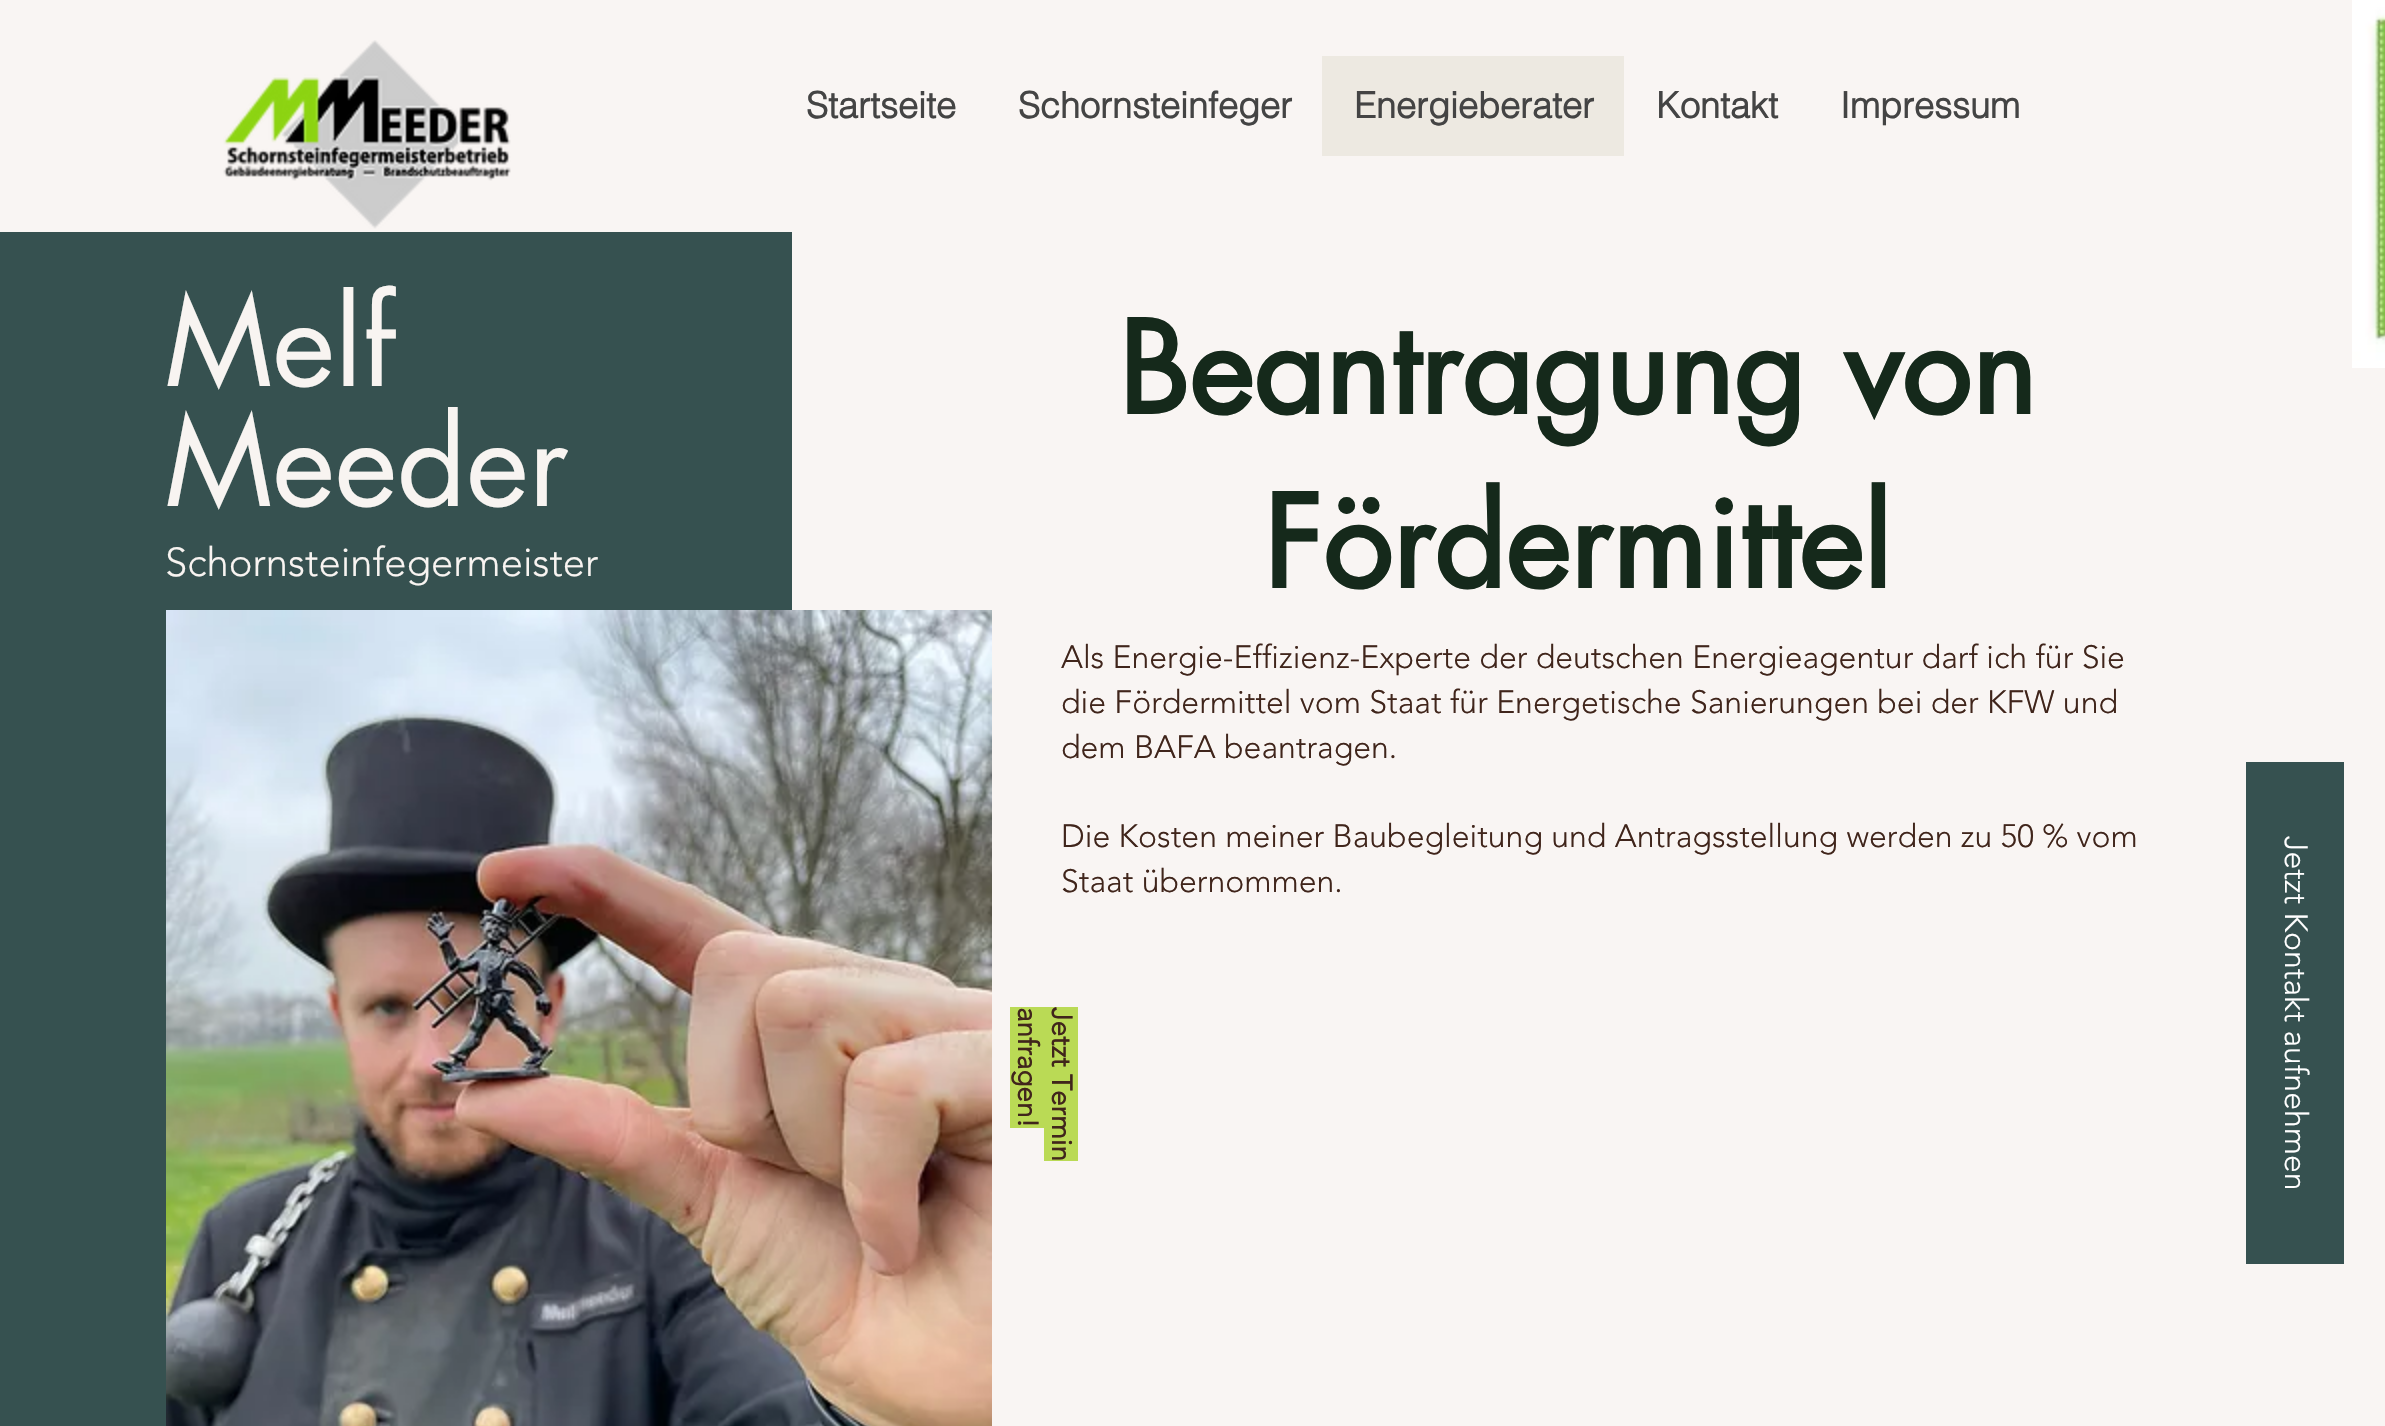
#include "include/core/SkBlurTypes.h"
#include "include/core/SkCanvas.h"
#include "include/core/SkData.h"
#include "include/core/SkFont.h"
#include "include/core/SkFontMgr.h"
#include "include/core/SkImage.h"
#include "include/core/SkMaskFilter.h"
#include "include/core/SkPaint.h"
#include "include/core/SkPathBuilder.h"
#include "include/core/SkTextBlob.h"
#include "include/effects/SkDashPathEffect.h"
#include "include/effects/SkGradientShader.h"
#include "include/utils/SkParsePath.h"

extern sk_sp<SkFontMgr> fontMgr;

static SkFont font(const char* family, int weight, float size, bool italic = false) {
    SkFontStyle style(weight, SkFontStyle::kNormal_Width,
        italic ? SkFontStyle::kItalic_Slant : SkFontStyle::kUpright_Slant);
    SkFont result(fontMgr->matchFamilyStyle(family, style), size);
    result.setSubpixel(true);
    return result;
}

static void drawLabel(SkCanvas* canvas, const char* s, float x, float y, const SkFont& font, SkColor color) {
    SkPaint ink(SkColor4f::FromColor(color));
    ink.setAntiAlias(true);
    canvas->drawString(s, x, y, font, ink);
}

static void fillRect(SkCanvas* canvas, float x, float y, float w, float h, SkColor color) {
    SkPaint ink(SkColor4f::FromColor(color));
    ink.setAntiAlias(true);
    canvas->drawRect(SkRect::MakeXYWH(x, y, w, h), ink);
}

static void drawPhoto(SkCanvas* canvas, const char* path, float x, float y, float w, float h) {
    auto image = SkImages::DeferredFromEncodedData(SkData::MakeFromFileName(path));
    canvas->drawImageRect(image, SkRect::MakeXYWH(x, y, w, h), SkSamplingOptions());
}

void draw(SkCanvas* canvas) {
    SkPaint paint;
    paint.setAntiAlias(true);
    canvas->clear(0xFFF9F5F3);
    drawPhoto(canvas, "assets/img1.png", 223, 40, 288, 189);
    SkFont font1 = font("helvetica", 700, 36);
    drawLabel(canvas, "Startseite", 806, 118, font1, 0xFF444444);
    drawLabel(canvas, "Schornsteinfeger", 1018, 118, font1, 0xFF444444);
    fillRect(canvas, 1322, 56, 302, 100, 0xFFEDE9E1);
    drawLabel(canvas, "Energieberater", 1354, 118, font1, 0xFF444444);
    drawLabel(canvas, "Kontakt", 1656, 118, font1, 0xFF444444);
    drawLabel(canvas, "Impressum", 1840, 118, font1, 0xFF444444);
    drawPhoto(canvas, "assets/img2.png", 2352, 0, 33, 368);
    fillRect(canvas, 0, 232, 792, 1194, 0xFF365150);
    SkFont font2 = font("futura", 400, 120);
    drawLabel(canvas, "Melf", 165, 386, font2, 0xFFF8F4F1);
    drawLabel(canvas, "Meeder", 165, 506, font2, 0xFFF8F4F1);
    SkFont font3 = font("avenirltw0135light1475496", 300, 40);
    drawLabel(canvas, "Schornsteinfegermeister", 165, 576, font3, 0xFFF8F4F1);
    drawPhoto(canvas, "assets/img3.png", 166, 610, 826, 816);
    fillRect(canvas, 1010, 1007, 34, 121, 0xFFBADA55);
    SkFont font4 = font("avenirltw0135light1475496", 700, 28);
    canvas->save();
    canvas->rotate(90, 1018, 1007);
    drawLabel(canvas, "anfragen!", 1018, 1007, font4, 0xFF40251B);
    canvas->restore();
    fillRect(canvas, 1044, 1007, 34, 154, 0xFFBADA55);
    canvas->save();
    canvas->rotate(90, 1052, 1007);
    drawLabel(canvas, "Jetzt Termin", 1052, 1007, font4, 0xFF40251B);
    canvas->restore();
    SkFont font5 = font("futura", 700, 124);
    drawLabel(canvas, "Beantragung von", 1118, 414, font5, 0xFF15291B);
    drawLabel(canvas, "Fördermittel", 1263, 588, font5, 0xFF15291B);
    SkFont font6 = font("avenirltw0135light1475496", 300, 32);
    drawLabel(canvas, "Als Energie-Effizienz-Experte der deutschen Energieagentur darf ich für Sie", 1061, 668, font6, 0xFF40251B);
    drawLabel(canvas, "die Fördermittel vom Staat für Energetische Sanierungen bei der KFW und", 1061, 713, font6, 0xFF40251B);
    drawLabel(canvas, "dem BAFA beantragen.", 1061, 758, font6, 0xFF40251B);
    drawLabel(canvas, "Die Kosten meiner Baubegleitung und Antragsstellung werden zu 50 % vom", 1061, 847, font6, 0xFF40251B);
    drawLabel(canvas, "Staat übernommen.", 1061, 892, font6, 0xFF40251B);
    fillRect(canvas, 2246, 762, 98, 502, 0xFF365150);
    canvas->save();
    canvas->rotate(90, 2285, 836);
    drawLabel(canvas, "Jetzt Kontakt aufnehmen", 2285, 836, font6, 0xFFFFFFFF);
    canvas->restore();
}
